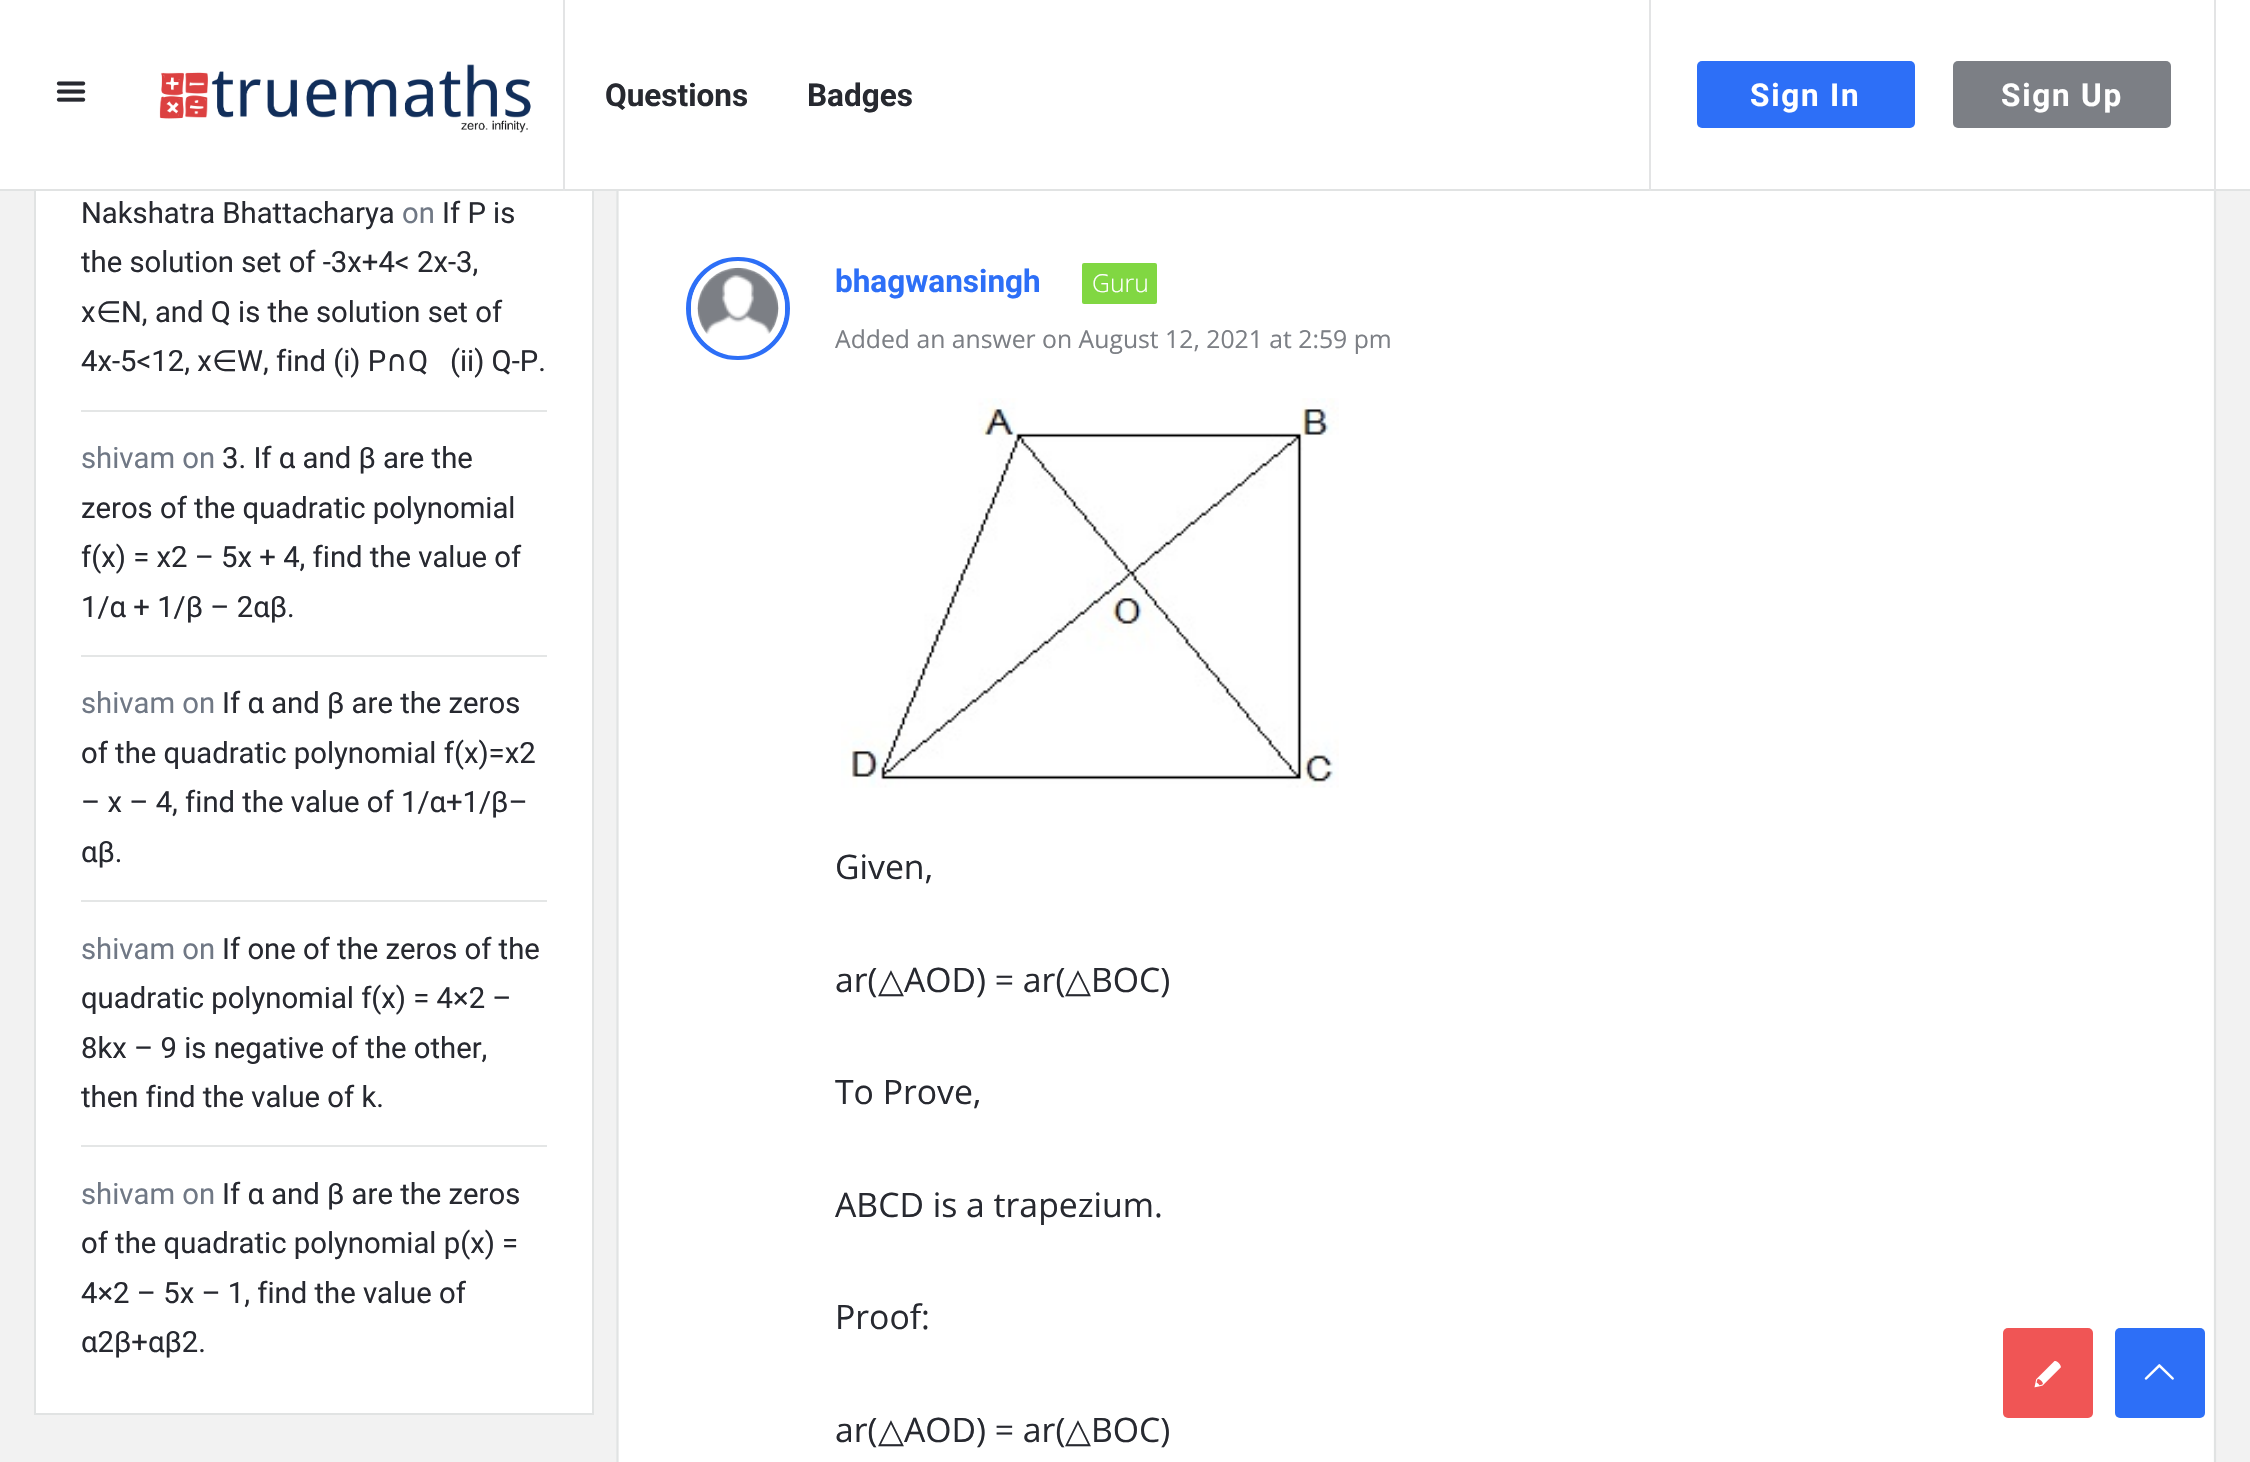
#include "include/core/SkBlurTypes.h"
#include "include/core/SkCanvas.h"
#include "include/core/SkData.h"
#include "include/core/SkFont.h"
#include "include/core/SkFontMgr.h"
#include "include/core/SkImage.h"
#include "include/core/SkMaskFilter.h"
#include "include/core/SkPaint.h"
#include "include/core/SkPathBuilder.h"
#include "include/core/SkTextBlob.h"
#include "include/effects/SkDashPathEffect.h"
#include "include/effects/SkGradientShader.h"
#include "include/utils/SkParsePath.h"

extern sk_sp<SkFontMgr> fontMgr;

static SkFont font(const char* family, int weight, float size, bool italic = false) {
    SkFontStyle style(weight, SkFontStyle::kNormal_Width,
        italic ? SkFontStyle::kItalic_Slant : SkFontStyle::kUpright_Slant);
    SkFont result(fontMgr->matchFamilyStyle(family, style), size);
    result.setSubpixel(true);
    return result;
}

static void drawLabel(SkCanvas* canvas, const char* s, float x, float y, const SkFont& font, SkColor color) {
    SkPaint ink(SkColor4f::FromColor(color));
    ink.setAntiAlias(true);
    canvas->drawString(s, x, y, font, ink);
}

static void drawTracked(SkCanvas* canvas, const char* s, float x, float y, const SkFont& font, const SkPaint& ink, float letter, float word) {
    std::vector<SkGlyphID> glyphs(font.countText(s, strlen(s), SkTextEncoding::kUTF8));
    std::vector<float> xs(glyphs.size());
    font.textToGlyphs(s, strlen(s), SkTextEncoding::kUTF8, glyphs);
    font.getXPos(glyphs, xs, x);
    float extra = 0;
    for (size_t i = 0; i < glyphs.size(); i++) {
        xs[i] += extra;
        extra += letter + word * (glyphs[i] == font.unicharToGlyph(' '));
    }
    canvas->drawTextBlob(SkTextBlob::MakeFromPosHGlyphs(glyphs, xs, y, font), 0, 0, ink);
}

static void fillRect(SkCanvas* canvas, float x, float y, float w, float h, SkColor color) {
    SkPaint ink(SkColor4f::FromColor(color));
    ink.setAntiAlias(true);
    canvas->drawRect(SkRect::MakeXYWH(x, y, w, h), ink);
}

static void fillRRect(SkCanvas* canvas, float x, float y, float w, float h, float radius, SkColor color) {
    SkPaint ink(SkColor4f::FromColor(color));
    ink.setAntiAlias(true);
    canvas->drawRoundRect(SkRect::MakeXYWH(x, y, w, h), radius, radius, ink);
}

static void drawPhoto(SkCanvas* canvas, const char* path, float x, float y, float w, float h) {
    auto image = SkImages::DeferredFromEncodedData(SkData::MakeFromFileName(path));
    canvas->drawImageRect(image, SkRect::MakeXYWH(x, y, w, h), SkSamplingOptions());
}

static SkPath parsePath(const char* data, bool evenOdd = false) {
    SkPath result = *SkParsePath::FromSVGString(data);
    if (evenOdd) result.setFillType(SkPathFillType::kEvenOdd);
    return result;
}

void draw(SkCanvas* canvas) {
    SkPaint paint;
    paint.setAntiAlias(true);
    canvas->clear(0xFFF2F2F2);
    fillRect(canvas, 36, 191, 556, 1222, 0xFFFFFFFF);
    paint.setStroke(true);
    paint.setStrokeWidth(2);
    paint.setColor(0xFFE1E3E3);
    canvas->drawRect(SkRect::MakeXYWH(35, 48, 558, 1366), paint);
    fillRect(canvas, 618, 191, 1596, 1271, 0xFFFFFFFF);
    paint.setStrokeWidth(2.2f);
    canvas->drawPath(parsePath("M618.5 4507L617.5 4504.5V-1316L618.5-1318.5L621-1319.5H2212L2214-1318.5L2215-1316V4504.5L2214 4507"), paint);
    fillRect(canvas, 0, 0, 2250, 189, 0xFFFFFFFF);
    fillRect(canvas, 0, 189, 2250, 2, 0xFFE1E3E3);
    drawPhoto(canvas, "assets/img1.png", 56, 81, 30, 21);
    fillRect(canvas, 563, 0, 2, 191, 0xFFE3E4E5);
    drawPhoto(canvas, "assets/img2.png", 159, 64, 372, 69);
    SkFont font1 = font("Roboto", 700, 31.5f);
    drawLabel(canvas, "Questions", 605, 106, font1, 0xFF272930);
    drawLabel(canvas, "Badges", 807, 106, font1, 0xFF272930);
    fillRect(canvas, 2214, 0, 2, 191, 0xFFE3E4E5);
    fillRect(canvas, 1649, 0, 2, 191, 0xFFE3E4E5);
    fillRRect(canvas, 1697, 61, 218, 67, 5, 0xFF2D6FF7);
    paint.setStroke(false);
    paint.setColor(0xFFFFFFFF);
    drawTracked(canvas, "Sign In", 1750, 106, font1, paint, 1.75f, 0);
    fillRRect(canvas, 1953, 61, 218, 67, 5, 0xFF7C7F85);
    drawTracked(canvas, "Sign Up", 2001, 106, font1, paint, 1.75f, 0);
    fillRect(canvas, 81, 410, 466, 2, 0xFFE4E6E6);
    SkFont font2 = font("Roboto", 400, 29.25f);
    drawLabel(canvas, "Nakshatra Bhattacharya", 81, 223, font2, 0xFF272930);
    drawLabel(canvas, "on", 402, 223, font2, 0xFF707885);
    drawLabel(canvas, "If P is", 442, 223, font2, 0xFF272930);
    drawLabel(canvas, "the solution set of -3x+4< 2x-3,", 81, 272, font2, 0xFF272930);
    drawLabel(canvas, "x", 81, 322, font2, 0xFF272930);
    SkFont font3 = font("DejaVu Sans", 400, 29.25f);
    drawLabel(canvas, "∈", 96, 322, font3, 0xFF272930);
    drawLabel(canvas, "N, and Q is the solution set of", 121, 322, font2, 0xFF272930);
    drawLabel(canvas, "4x-5<12, x", 81, 371, font2, 0xFF272930);
    drawLabel(canvas, "∈", 212, 371, font3, 0xFF272930);
    drawLabel(canvas, "W, find (i) P", 237, 371, font2, 0xFF272930);
    drawLabel(canvas, "∩", 386, 371, font3, 0xFF272930);
    drawLabel(canvas, "Q   (ii) Q-P.", 408, 371, font2, 0xFF272930);
    fillRect(canvas, 81, 655, 466, 2, 0xFFE4E6E6);
    drawLabel(canvas, "shivam on", 81, 468, font2, 0xFF707885);
    drawLabel(canvas, "3. If α and β are the", 222, 468, font2, 0xFF272930);
    drawLabel(canvas, "zeros of the quadratic polynomial", 81, 518, font2, 0xFF272930);
    drawLabel(canvas, "f(x) = x2 – 5x + 4, find the value of", 81, 567, font2, 0xFF272930);
    drawLabel(canvas, "1/α + 1/β – 2αβ.", 81, 617, font2, 0xFF272930);
    fillRect(canvas, 81, 900, 466, 2, 0xFFE4E6E6);
    drawLabel(canvas, "shivam on", 81, 713, font2, 0xFF707885);
    drawLabel(canvas, "If α and β are the zeros", 222, 713, font2, 0xFF272930);
    drawLabel(canvas, "of the quadratic polynomial f(x)=x2", 81, 763, font2, 0xFF272930);
    drawLabel(canvas, "– x – 4, find the value of 1/α+1/β–", 81, 812, font2, 0xFF272930);
    drawLabel(canvas, "αβ.", 81, 862, font2, 0xFF272930);
    fillRect(canvas, 81, 1145, 466, 2, 0xFFE4E6E6);
    drawLabel(canvas, "shivam on", 81, 959, font2, 0xFF707885);
    drawLabel(canvas, "If one of the zeros of the", 222, 959, font2, 0xFF272930);
    drawLabel(canvas, "quadratic polynomial f(x) = 4×2 –", 81, 1008, font2, 0xFF272930);
    drawLabel(canvas, "8kx – 9 is negative of the other,", 81, 1058, font2, 0xFF272930);
    drawLabel(canvas, "then find the value of k.", 81, 1107, font2, 0xFF272930);
    drawLabel(canvas, "shivam on", 81, 1204, font2, 0xFF707885);
    drawLabel(canvas, "If α and β are the zeros", 222, 1204, font2, 0xFF272930);
    drawLabel(canvas, "of the quadratic polynomial p(x) =", 81, 1253, font2, 0xFF272930);
    drawLabel(canvas, "4×2 – 5x – 1, find the value of", 81, 1303, font2, 0xFF272930);
    drawLabel(canvas, "α2β+αβ2.", 81, 1352, font2, 0xFF272930);
    paint.setStroke(true);
    paint.setStrokeWidth(5);
    paint.setColor(0xFF2D6FF7);
    canvas->drawRoundRect(SkRect::MakeXYWH(688.5f, 259.5f, 99, 98), 49, 49, paint);
    paint.setStrokeWidth(7);
    paint.setColor(0xFFFFFFFF);
    canvas->drawRoundRect(SkRect::MakeXYWH(694.5f, 264.5f, 87, 88), 43.5f, 43.5f, paint);
    drawPhoto(canvas, "assets/img3.png", 697, 267, 82, 67);
    drawLabel(canvas, "bhagwansingh", 835, 292, font1, 0xFF2D6FF7);
    fillRRect(canvas, 1082, 263, 75, 41, 2, 0xFF81D742);
    SkFont font4 = font("Open Sans", 300, 24.75f);
    drawLabel(canvas, "Guru", 1092, 292, font4, 0xFFFFFFFF);
    SkFont font5 = font("Open Sans", 400, 24.75f);
    drawLabel(canvas, "Added an answer on August 12, 2021 at 2:59 pm", 835, 348, font5, 0xFF7C7F85);
    drawPhoto(canvas, "assets/img4.png", 841, 398, 498, 390);
    SkFont font6 = font("Open Sans", 400, 33.75f);
    drawLabel(canvas, "Given,", 835, 879, font6, 0xFF272930);
    drawLabel(canvas, "ar(", 835, 992, font6, 0xFF272930);
    SkFont font7 = font("DejaVu Sans", 400, 33.75f);
    drawLabel(canvas, "△", 878, 992, font7, 0xFF272930);
    drawLabel(canvas, "AOD) = ar(", 904, 992, font6, 0xFF272930);
    drawLabel(canvas, "△", 1065, 992, font7, 0xFF272930);
    drawLabel(canvas, "BOC)", 1091, 992, font6, 0xFF272930);
    drawLabel(canvas, "To Prove,", 835, 1104, font6, 0xFF272930);
    drawLabel(canvas, "ABCD is a trapezium.", 835, 1217, font6, 0xFF272930);
    drawLabel(canvas, "Proof:", 835, 1329, font6, 0xFF272930);
    drawLabel(canvas, "ar(", 835, 1442, font6, 0xFF272930);
    drawLabel(canvas, "△", 878, 1442, font7, 0xFF272930);
    drawLabel(canvas, "AOD) = ar(", 904, 1442, font6, 0xFF272930);
    drawLabel(canvas, "△", 1065, 1442, font7, 0xFF272930);
    drawLabel(canvas, "BOC)", 1091, 1442, font6, 0xFF272930);
    fillRRect(canvas, 2003, 1328, 90, 90, 5, 0xFFF05555);
    drawPhoto(canvas, "assets/img5.png", 2034, 1361, 27, 27);
    fillRRect(canvas, 2115, 1328, 90, 90, 5, 0xFF2D6FF7);
    drawPhoto(canvas, "assets/img6.png", 2144, 1364, 30, 16);
}
